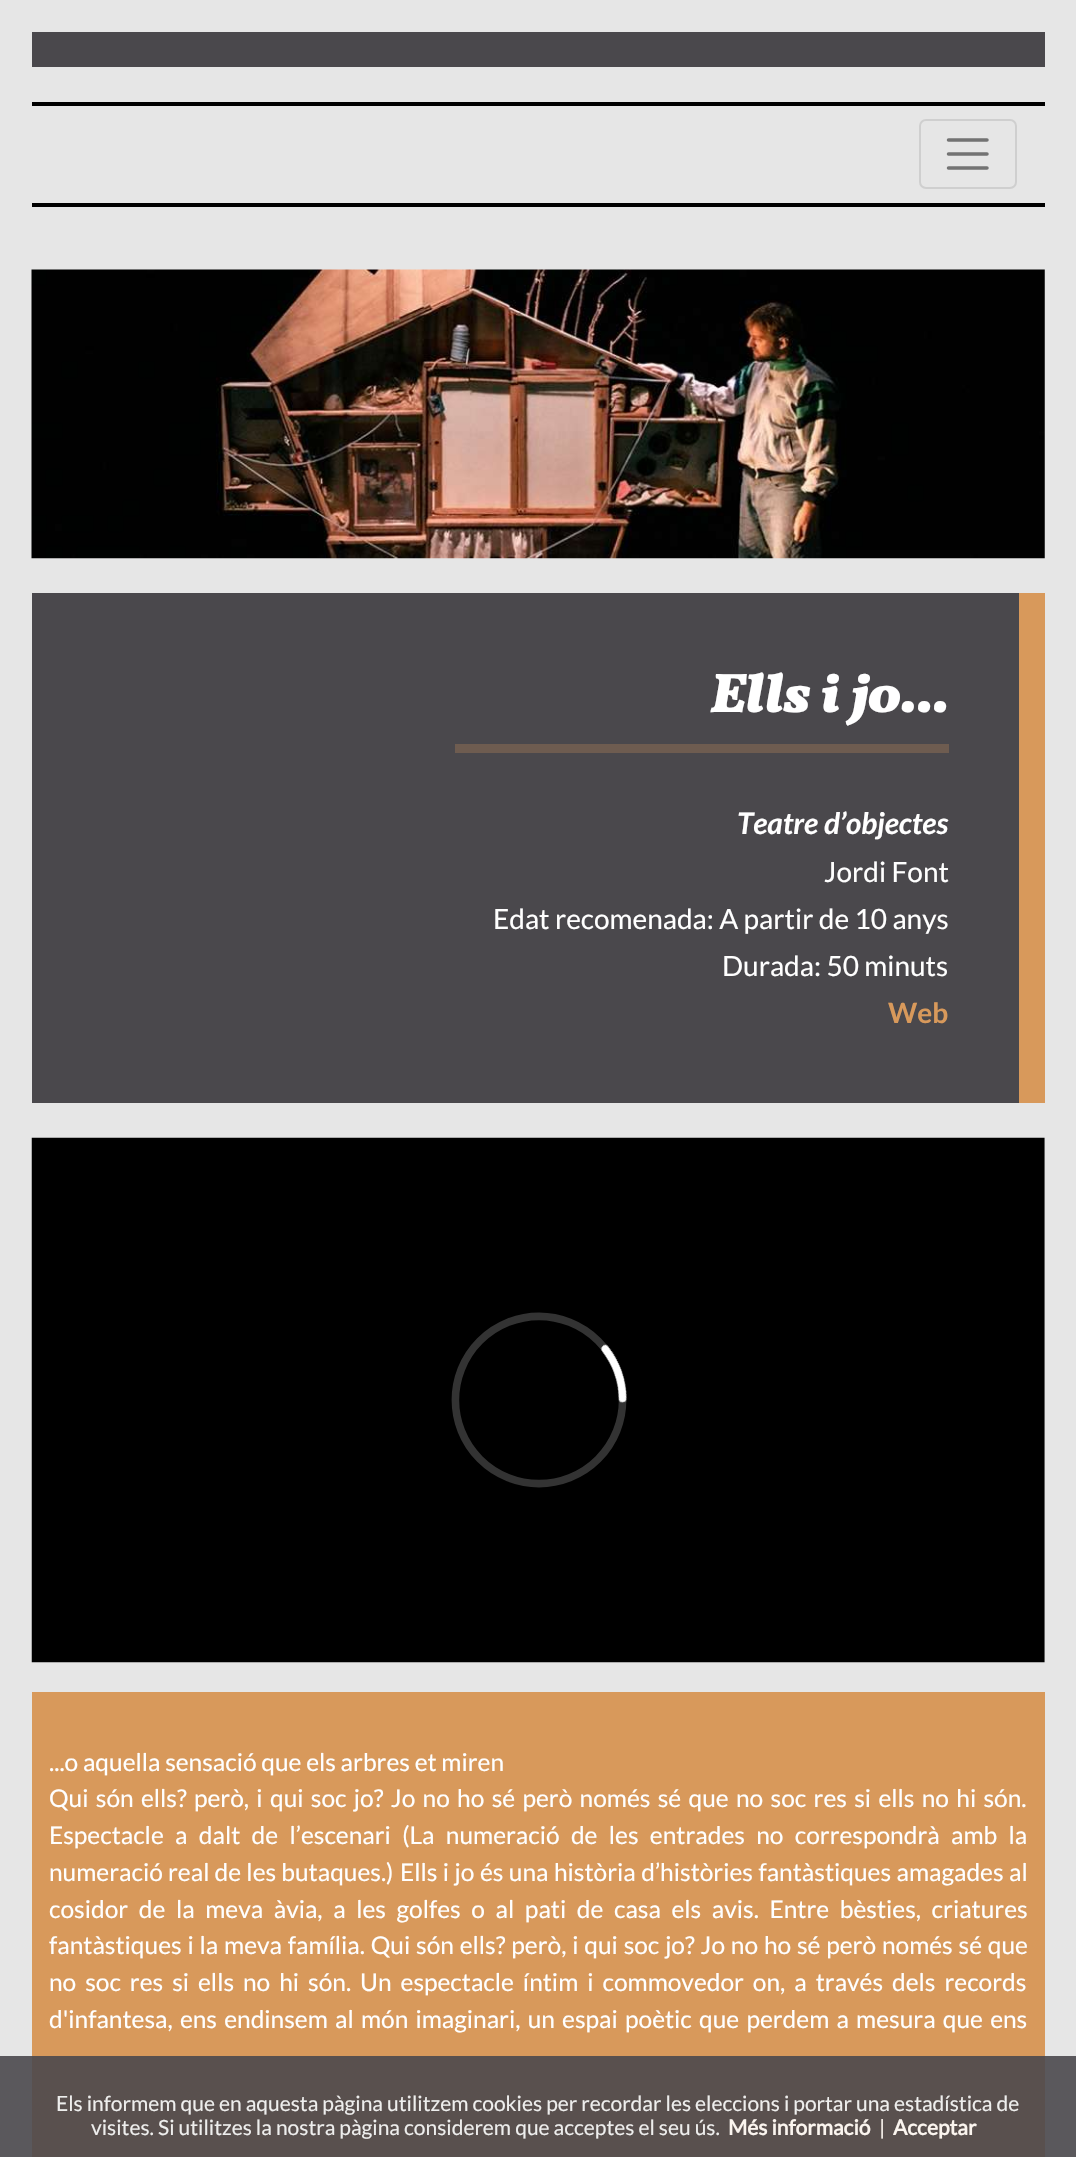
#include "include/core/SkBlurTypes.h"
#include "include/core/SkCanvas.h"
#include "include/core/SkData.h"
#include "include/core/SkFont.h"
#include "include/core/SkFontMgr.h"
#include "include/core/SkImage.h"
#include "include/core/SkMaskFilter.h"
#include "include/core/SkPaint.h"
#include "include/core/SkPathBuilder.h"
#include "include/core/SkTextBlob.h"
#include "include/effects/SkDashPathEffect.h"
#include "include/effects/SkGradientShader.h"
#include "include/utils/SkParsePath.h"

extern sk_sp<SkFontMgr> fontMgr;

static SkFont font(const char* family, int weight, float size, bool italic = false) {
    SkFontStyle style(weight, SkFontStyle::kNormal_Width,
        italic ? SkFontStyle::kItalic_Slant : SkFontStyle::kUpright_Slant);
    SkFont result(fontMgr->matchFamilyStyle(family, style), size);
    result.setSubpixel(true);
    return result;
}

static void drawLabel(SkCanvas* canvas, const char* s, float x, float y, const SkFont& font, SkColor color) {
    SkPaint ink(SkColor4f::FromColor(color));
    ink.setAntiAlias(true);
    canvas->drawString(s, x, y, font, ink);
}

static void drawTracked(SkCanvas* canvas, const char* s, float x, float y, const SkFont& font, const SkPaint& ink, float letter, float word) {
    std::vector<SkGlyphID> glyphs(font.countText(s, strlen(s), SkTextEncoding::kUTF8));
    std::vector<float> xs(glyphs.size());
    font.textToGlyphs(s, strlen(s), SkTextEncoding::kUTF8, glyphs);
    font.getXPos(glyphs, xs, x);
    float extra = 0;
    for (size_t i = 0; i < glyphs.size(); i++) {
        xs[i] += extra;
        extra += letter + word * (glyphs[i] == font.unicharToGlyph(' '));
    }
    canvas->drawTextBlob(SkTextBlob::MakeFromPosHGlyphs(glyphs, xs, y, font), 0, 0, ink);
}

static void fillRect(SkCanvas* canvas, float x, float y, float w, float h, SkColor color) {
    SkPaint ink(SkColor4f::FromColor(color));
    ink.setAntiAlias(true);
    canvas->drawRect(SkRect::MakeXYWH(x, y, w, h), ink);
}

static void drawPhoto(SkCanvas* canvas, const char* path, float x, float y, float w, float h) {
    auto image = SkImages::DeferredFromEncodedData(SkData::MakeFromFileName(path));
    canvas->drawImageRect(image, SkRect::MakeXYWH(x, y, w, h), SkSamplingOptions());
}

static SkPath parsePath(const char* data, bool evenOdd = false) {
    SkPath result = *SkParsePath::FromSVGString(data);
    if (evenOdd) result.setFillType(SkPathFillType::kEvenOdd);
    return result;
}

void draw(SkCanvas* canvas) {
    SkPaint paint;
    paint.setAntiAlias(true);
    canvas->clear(0xFFE6E6E6);
    fillRect(canvas, 32, 32, 1013, 35, 0xFF4A484C);
    fillRect(canvas, 32, 102, 1013, 4, 0xFF000000);
    fillRect(canvas, 32, 203, 1013, 4, 0xFF000000);
    paint.setStroke(true);
    paint.setStrokeWidth(2);
    paint.setColor(0xFFCFCFCF);
    canvas->drawRoundRect(SkRect::MakeXYWH(920, 120, 96, 68), 6, 6, paint);
    paint.setStrokeWidth(3.5f);
    paint.setStrokeCap(SkPaint::kRound_Cap);
    paint.setColor(0xFF737373);
    canvas->drawPath(parsePath("M948.5 140H987M948.5 154H987M948.5 168H987"), paint);
    drawPhoto(canvas, "assets/img1.png", 31, 269, 1014, 290);
    fillRect(canvas, 32, 593, 987, 510, 0xFF4A484C);
    fillRect(canvas, 1019, 593, 26, 510, 0xFFD8995B);
    SkFont font1 = font("Vollkorn", 700, 56, true);
    drawLabel(canvas, "Ells i jo...", 710, 712, font1, 0xFFFFFFFF);
    fillRect(canvas, 455, 744, 494, 9, 0xFF6E5C50);
    SkFont font2 = font("Lato", 700, 29.75f, true);
    drawLabel(canvas, "Teatre d’objectes", 737, 834, font2, 0xFFFFFFFF);
    SkFont font3 = font("Lato", 400, 28);
    drawLabel(canvas, "Jordi Font", 824, 882, font3, 0xFFFFFFFF);
    drawLabel(canvas, "Edat recomenada: A partir de 10 anys", 493, 929, font3, 0xFFFFFFFF);
    drawLabel(canvas, "Durada: 50 minuts", 722, 976, font3, 0xFFFFFFFF);
    SkFont font4 = font("Lato", 700, 28);
    drawLabel(canvas, "Web", 888, 1023, font4, 0xFFD8995B);
    drawPhoto(canvas, "assets/img2.png", 31, 1137, 1014, 526);
    fillRect(canvas, 32, 1692, 1013, 465, 0xFFD8995B);
    SkFont font5 = font("Lato", 400, 24.5f);
    drawLabel(canvas, "...o aquella sensació que els arbres et miren", 49, 1771, font5, 0xFFFFFFFF);
    paint.setStroke(false);
    paint.setColor(0xFFFFFFFF);
    drawTracked(canvas, "Qui són ells? però, i qui soc jo? Jo no ho sé però només sé que no soc res si ells no hi són.", 49, 1807, font5, paint, 0, 2.6f);
    drawTracked(canvas, "Espectacle a dalt de l’escenari (La numeració de les entrades no correspondrà amb la", 49, 1844, font5, paint, 0, 6.6f);
    drawTracked(canvas, "numeració real de les butaques.)", 49, 1881, font5, paint, 0, 0.5f);
    drawTracked(canvas, "Ells i jo és una història d’històries fantàstiques amagades al", 400, 1881, font5, paint, 0, 0.75f);
    drawTracked(canvas, "cosidor de la meva àvia, a les golfes o al pati de casa els avis. Entre bèsties, criatures", 49, 1918, font5, paint, 0, 5.9f);
    drawTracked(canvas, "fantàstiques i la meva família. Qui són ells? però, i qui soc jo? Jo no ho sé però només sé que", 49, 1954, font5, paint, 0, 1.1f);
    drawTracked(canvas, "no soc res si ells no hi són. Un espectacle íntim i commovedor on, a través dels records", 49, 1991, font5, paint, 0, 4.25f);
    drawTracked(canvas, "d'infantesa, ens endinsem al món imaginari, un espai poètic que perdem a mesura que ens", 49, 2028, font5, paint, 0, 2.5f);
    fillRect(canvas, 0, 2056, 1076, 101, 0xE64A484C);
    SkFont font6 = font("Lato", 400, 21);
    drawLabel(canvas, "Els informem que en aquesta pàgina utilitzem cookies per recordar les eleccions i portar una estadística de", 56, 2111, font6, 0xFFEEEEED);
    drawLabel(canvas, "visites. Si utilitzes la nostra pàgina considerem que acceptes el seu ús.", 91, 2135, font6, 0xFFEEEEED);
    SkFont font7 = font("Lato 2", 700, 21);
    drawLabel(canvas, "Més informació", 728, 2135, font7, 0xFFFBF5EF);
    drawLabel(canvas, "|", 879, 2135, font6, 0xFFFBF5EF);
    drawLabel(canvas, "Acceptar", 893, 2135, font7, 0xFFFBF5EF);
}
